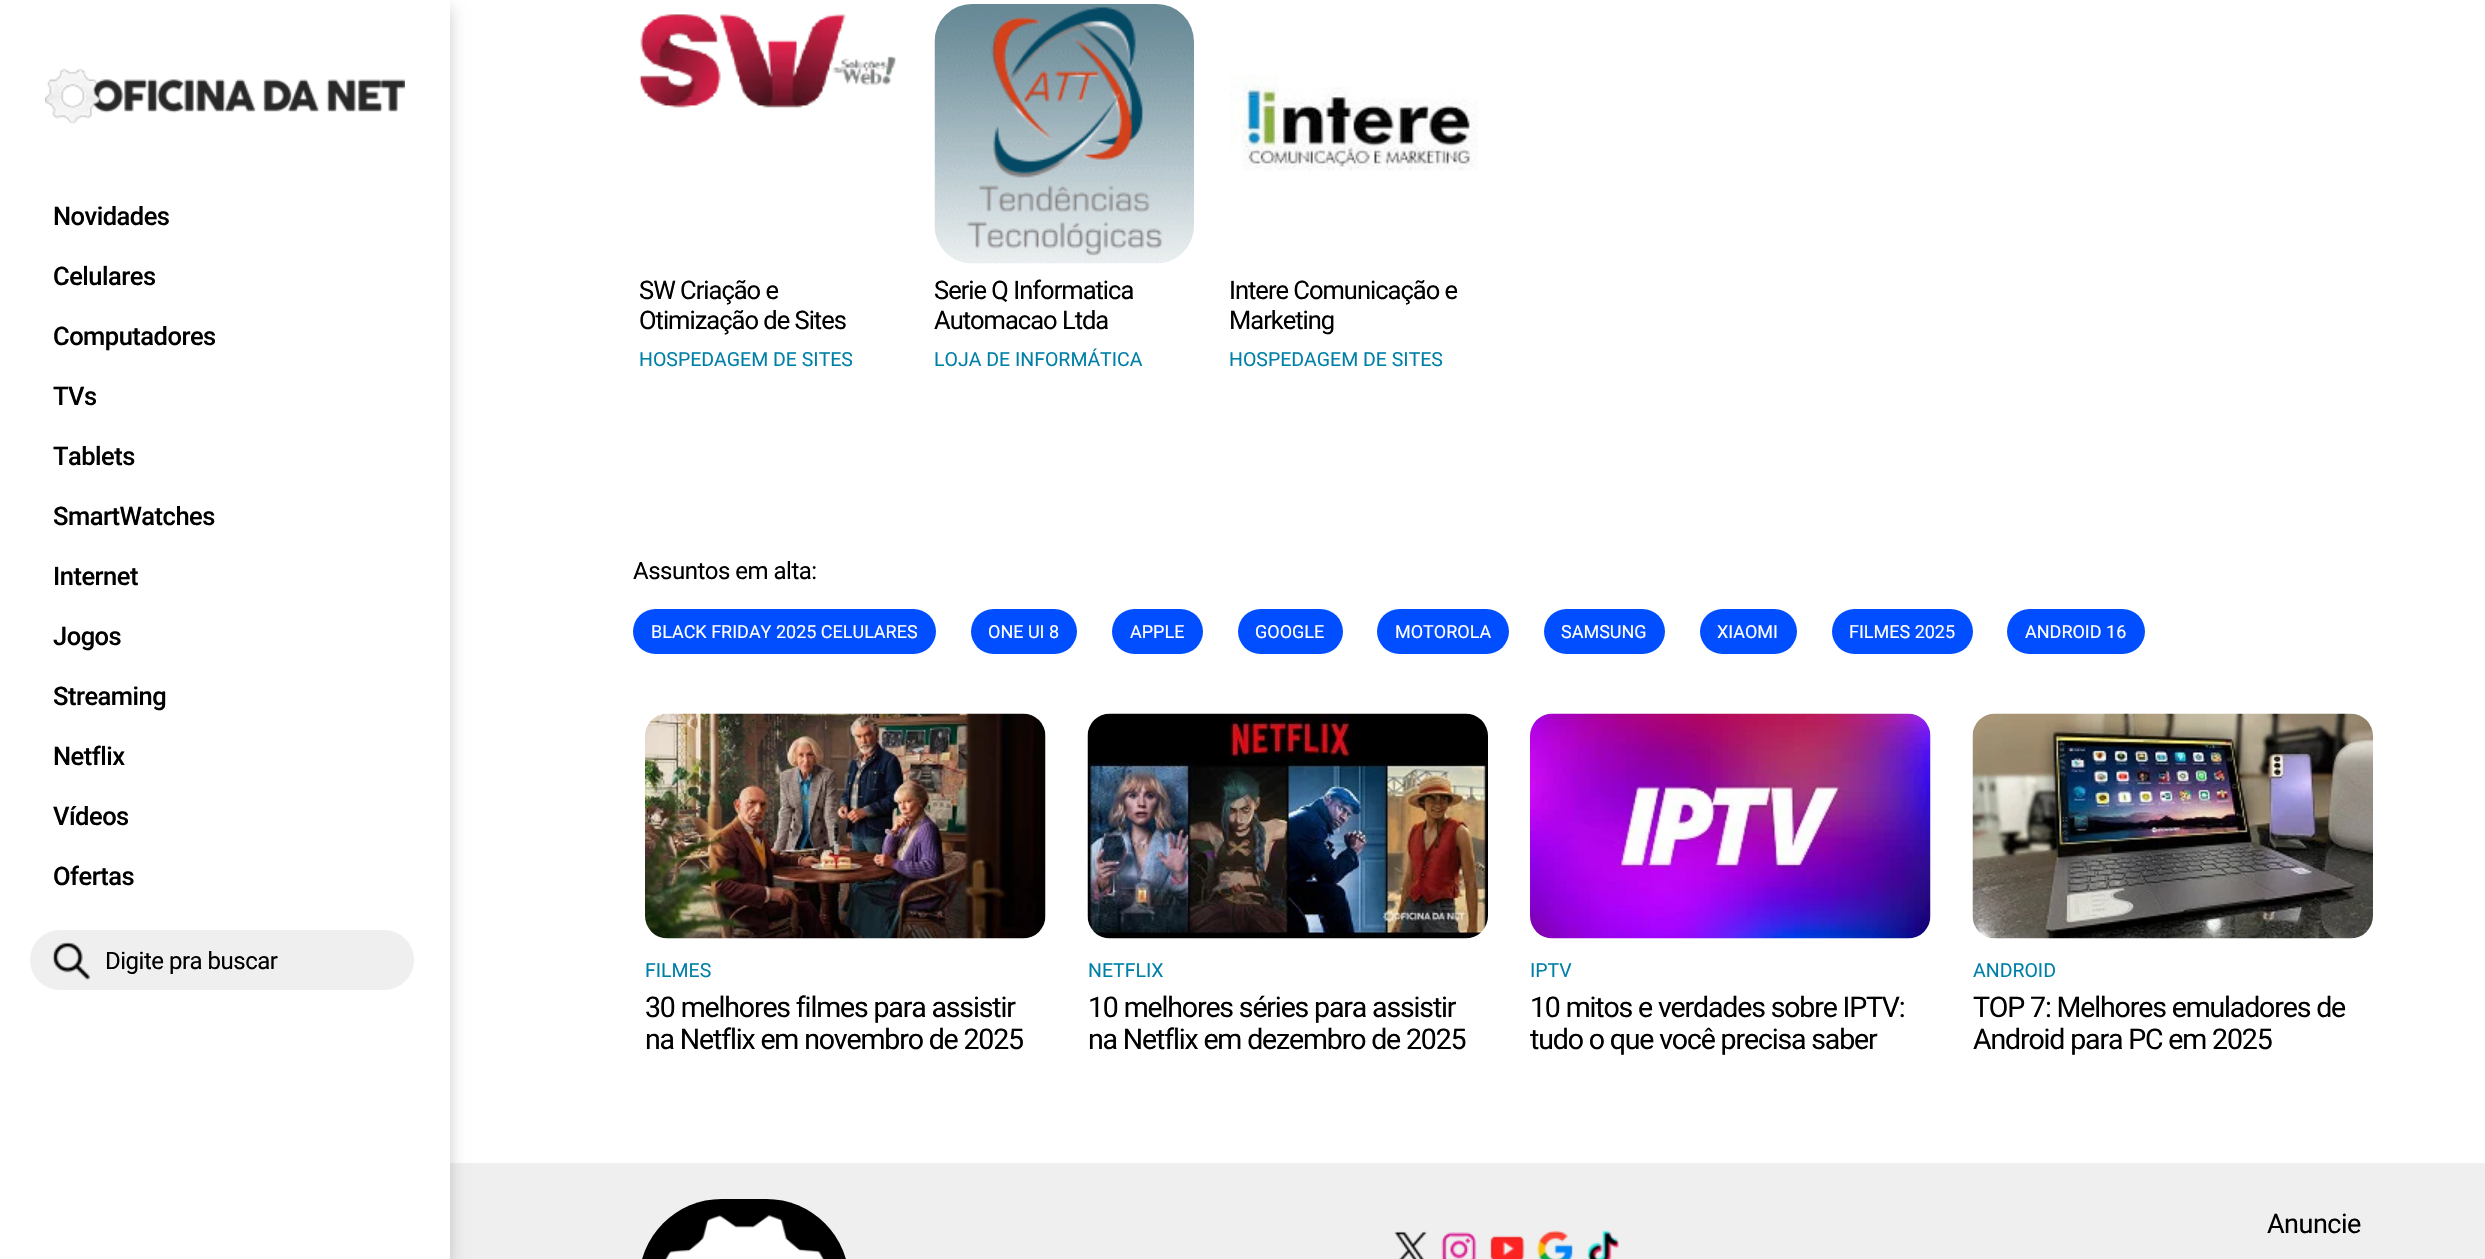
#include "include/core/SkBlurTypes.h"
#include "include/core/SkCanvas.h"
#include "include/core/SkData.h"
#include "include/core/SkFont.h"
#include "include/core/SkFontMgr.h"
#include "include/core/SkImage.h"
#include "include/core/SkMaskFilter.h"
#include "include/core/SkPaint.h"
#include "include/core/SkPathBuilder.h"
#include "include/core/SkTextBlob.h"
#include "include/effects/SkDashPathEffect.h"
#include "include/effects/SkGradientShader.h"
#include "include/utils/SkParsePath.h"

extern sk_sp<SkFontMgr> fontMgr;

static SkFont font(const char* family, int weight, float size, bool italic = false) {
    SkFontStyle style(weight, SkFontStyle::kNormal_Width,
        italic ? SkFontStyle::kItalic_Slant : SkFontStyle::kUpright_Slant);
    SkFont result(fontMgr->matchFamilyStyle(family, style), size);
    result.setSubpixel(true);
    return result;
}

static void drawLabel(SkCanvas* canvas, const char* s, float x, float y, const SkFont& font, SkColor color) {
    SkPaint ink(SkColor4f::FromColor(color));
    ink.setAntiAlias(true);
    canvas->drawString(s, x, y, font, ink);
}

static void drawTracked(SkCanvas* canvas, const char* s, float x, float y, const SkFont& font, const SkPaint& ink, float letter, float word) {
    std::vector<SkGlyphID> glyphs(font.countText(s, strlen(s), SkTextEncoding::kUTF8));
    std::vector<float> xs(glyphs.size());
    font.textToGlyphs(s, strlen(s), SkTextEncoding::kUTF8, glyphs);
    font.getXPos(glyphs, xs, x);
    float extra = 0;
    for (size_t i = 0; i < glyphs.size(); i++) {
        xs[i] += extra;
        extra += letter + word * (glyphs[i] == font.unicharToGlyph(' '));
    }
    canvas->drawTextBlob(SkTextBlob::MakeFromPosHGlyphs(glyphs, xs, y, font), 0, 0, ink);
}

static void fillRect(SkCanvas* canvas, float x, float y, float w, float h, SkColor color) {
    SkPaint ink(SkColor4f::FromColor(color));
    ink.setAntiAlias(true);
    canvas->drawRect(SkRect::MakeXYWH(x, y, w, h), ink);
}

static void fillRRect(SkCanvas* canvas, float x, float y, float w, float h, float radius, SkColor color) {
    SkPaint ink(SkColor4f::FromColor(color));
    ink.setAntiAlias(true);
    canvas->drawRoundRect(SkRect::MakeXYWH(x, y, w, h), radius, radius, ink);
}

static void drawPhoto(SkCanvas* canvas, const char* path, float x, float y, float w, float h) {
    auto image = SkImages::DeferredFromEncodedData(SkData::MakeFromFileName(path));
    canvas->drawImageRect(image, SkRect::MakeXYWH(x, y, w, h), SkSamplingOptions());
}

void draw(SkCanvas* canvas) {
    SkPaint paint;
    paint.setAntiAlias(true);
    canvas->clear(0xFFFFFFFF);
    fillRect(canvas, 450, 1163, 2035, 96, 0xFFEFEFEF);
    paint.setColor(0x33000000);
    paint.setMaskFilter(SkMaskFilter::MakeBlur(kNormal_SkBlurStyle, 7.5f));
    canvas->drawRect(SkRect::MakeXYWH(0, 8, 450, 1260), paint);
    paint.setMaskFilter(nullptr);
    fillRect(canvas, 0, 0, 450, 1259, 0xFFFFFFFF);
    drawPhoto(canvas, "assets/img1.png", 45, 68, 360, 56);
    SkFont font1 = font("Roboto", 500, 25.5f);
    paint.setColor(0xFF000000);
    drawTracked(canvas, "Novidades", 53, 225, font1, paint, -0.5f, 0);
    drawTracked(canvas, "Celulares", 53, 285, font1, paint, -0.5f, 0);
    drawTracked(canvas, "Computadores", 53, 345, font1, paint, -0.5f, 0);
    drawTracked(canvas, "TVs", 53, 405, font1, paint, -0.5f, 0);
    drawTracked(canvas, "Tablets", 53, 465, font1, paint, -0.5f, 0);
    drawTracked(canvas, "SmartWatches", 53, 525, font1, paint, -0.5f, 0);
    drawTracked(canvas, "Internet", 53, 585, font1, paint, -0.5f, 0);
    drawTracked(canvas, "Jogos", 53, 645, font1, paint, -0.5f, 0);
    drawTracked(canvas, "Streaming", 53, 705, font1, paint, -0.5f, 0);
    drawTracked(canvas, "Netflix", 53, 765, font1, paint, -0.5f, 0);
    drawTracked(canvas, "Vídeos", 53, 825, font1, paint, -0.5f, 0);
    drawTracked(canvas, "Ofertas", 53, 885, font1, paint, -0.5f, 0);
    fillRRect(canvas, 30, 930, 384, 60, 30, 0xFFEFEFEF);
    drawPhoto(canvas, "assets/img2.png", 52, 942, 38, 38);
    SkFont font2 = font("Roboto", 400, 24);
    drawTracked(canvas, "Digite pra buscar", 105, 969, font2, paint, -0.5f, 0);
    drawPhoto(canvas, "assets/img3.png", 639, 14, 257, 94);
    SkFont font3 = font("Roboto", 400, 25.5f);
    drawTracked(canvas, "SW Criação e", 639, 299, font3, paint, -1, 0);
    drawTracked(canvas, "Otimização de Sites", 639, 329, font3, paint, -1, 0);
    SkFont font4 = font("Roboto", 400, 19.5f);
    drawLabel(canvas, "HOSPEDAGEM DE SITES", 639, 366, font4, 0xFF0080A7);
    drawPhoto(canvas, "assets/img4.png", 934, 4, 260, 260);
    drawTracked(canvas, "Serie Q Informatica", 934, 299, font3, paint, -1, 0);
    drawTracked(canvas, "Automacao Ltda", 934, 329, font3, paint, -1, 0);
    drawLabel(canvas, "LOJA DE INFORMÁTICA", 934, 366, font4, 0xFF0080A7);
    drawPhoto(canvas, "assets/img5.png", 1230, 74, 248, 97);
    drawTracked(canvas, "Intere Comunicação e", 1229, 299, font3, paint, -1, 0);
    drawTracked(canvas, "Marketing", 1229, 329, font3, paint, -1, 0);
    drawLabel(canvas, "HOSPEDAGEM DE SITES", 1229, 366, font4, 0xFF0080A7);
    drawTracked(canvas, "Assuntos em alta:", 633, 579, font2, paint, -0.5f, 0);
    fillRRect(canvas, 633, 609, 303, 45, 22.5f, 0xFF004EFF);
    SkFont font5 = font("Roboto", 400, 18);
    drawLabel(canvas, "BLACK FRIDAY 2025 CELULARES", 651, 638, font5, 0xFFFFFFFF);
    fillRRect(canvas, 971, 609, 106, 45, 22.5f, 0xFF004EFF);
    drawLabel(canvas, "ONE UI 8", 988, 638, font5, 0xFFFFFFFF);
    fillRRect(canvas, 1112, 609, 91, 45, 22.5f, 0xFF004EFF);
    drawLabel(canvas, "APPLE", 1130, 638, font5, 0xFFFFFFFF);
    fillRRect(canvas, 1238, 609, 105, 45, 22.5f, 0xFF004EFF);
    drawLabel(canvas, "GOOGLE", 1255, 638, font5, 0xFFFFFFFF);
    fillRRect(canvas, 1377, 609, 132, 45, 22.5f, 0xFF004EFF);
    drawLabel(canvas, "MOTOROLA", 1395, 638, font5, 0xFFFFFFFF);
    fillRRect(canvas, 1544, 609, 121, 45, 22.5f, 0xFF004EFF);
    drawLabel(canvas, "SAMSUNG", 1561, 638, font5, 0xFFFFFFFF);
    fillRRect(canvas, 1700, 609, 97, 45, 22.5f, 0xFF004EFF);
    drawLabel(canvas, "XIAOMI", 1717, 638, font5, 0xFFFFFFFF);
    fillRRect(canvas, 1832, 609, 141, 45, 22.5f, 0xFF004EFF);
    drawLabel(canvas, "FILMES 2025", 1849, 638, font5, 0xFFFFFFFF);
    fillRRect(canvas, 2007, 609, 138, 45, 22.5f, 0xFF004EFF);
    drawLabel(canvas, "ANDROID 16", 2025, 638, font5, 0xFFFFFFFF);
    drawPhoto(canvas, "assets/img6.png", 645, 713, 401, 226);
    drawLabel(canvas, "FILMES", 645, 977, font4, 0xFF0080A7);
    SkFont font6 = font("Roboto", 400, 28.5f);
    drawTracked(canvas, "30 melhores filmes para assistir", 645, 1017, font6, paint, -1.15f, 0);
    drawTracked(canvas, "na Netflix em novembro de 2025", 645, 1049, font6, paint, -1.15f, 0);
    drawPhoto(canvas, "assets/img7.png", 1087, 713, 401, 226);
    drawLabel(canvas, "NETFLIX", 1088, 977, font4, 0xFF0080A7);
    drawTracked(canvas, "10 melhores séries para assistir", 1088, 1017, font6, paint, -1.15f, 0);
    drawTracked(canvas, "na Netflix em dezembro de 2025", 1088, 1049, font6, paint, -1.15f, 0);
    drawPhoto(canvas, "assets/img8.png", 1530, 713, 401, 226);
    drawLabel(canvas, "IPTV", 1530, 977, font4, 0xFF0080A7);
    drawTracked(canvas, "10 mitos e verdades sobre IPTV:", 1530, 1017, font6, paint, -1.15f, 0);
    drawTracked(canvas, "tudo o que você precisa saber", 1530, 1049, font6, paint, -1.15f, 0);
    drawPhoto(canvas, "assets/img9.png", 1972, 713, 401, 226);
    drawLabel(canvas, "ANDROID", 1973, 977, font4, 0xFF0080A7);
    drawTracked(canvas, "TOP 7: Melhores emuladores de", 1973, 1017, font6, paint, -1.15f, 0);
    drawTracked(canvas, "Android para PC em 2025", 1973, 1049, font6, paint, -1.15f, 0);
    fillRRect(canvas, 639, 1199, 210, 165, 105, 0xFF000000);
    drawPhoto(canvas, "assets/img10.png", 665, 1215, 159, 44);
    SkFont font7 = font("Roboto", 400, 27);
    drawTracked(canvas, "Anuncie", 2267, 1233, font7, paint, -0.5f, 0);
    drawPhoto(canvas, "assets/img11.png", 1394, 1231, 33, 28);
    drawPhoto(canvas, "assets/img12.png", 1441, 1232, 36, 27);
    drawPhoto(canvas, "assets/img13.png", 1489, 1235, 36, 24);
    drawPhoto(canvas, "assets/img14.png", 1537, 1230, 37, 29);
    drawPhoto(canvas, "assets/img15.png", 1586, 1230, 33, 29);
}
